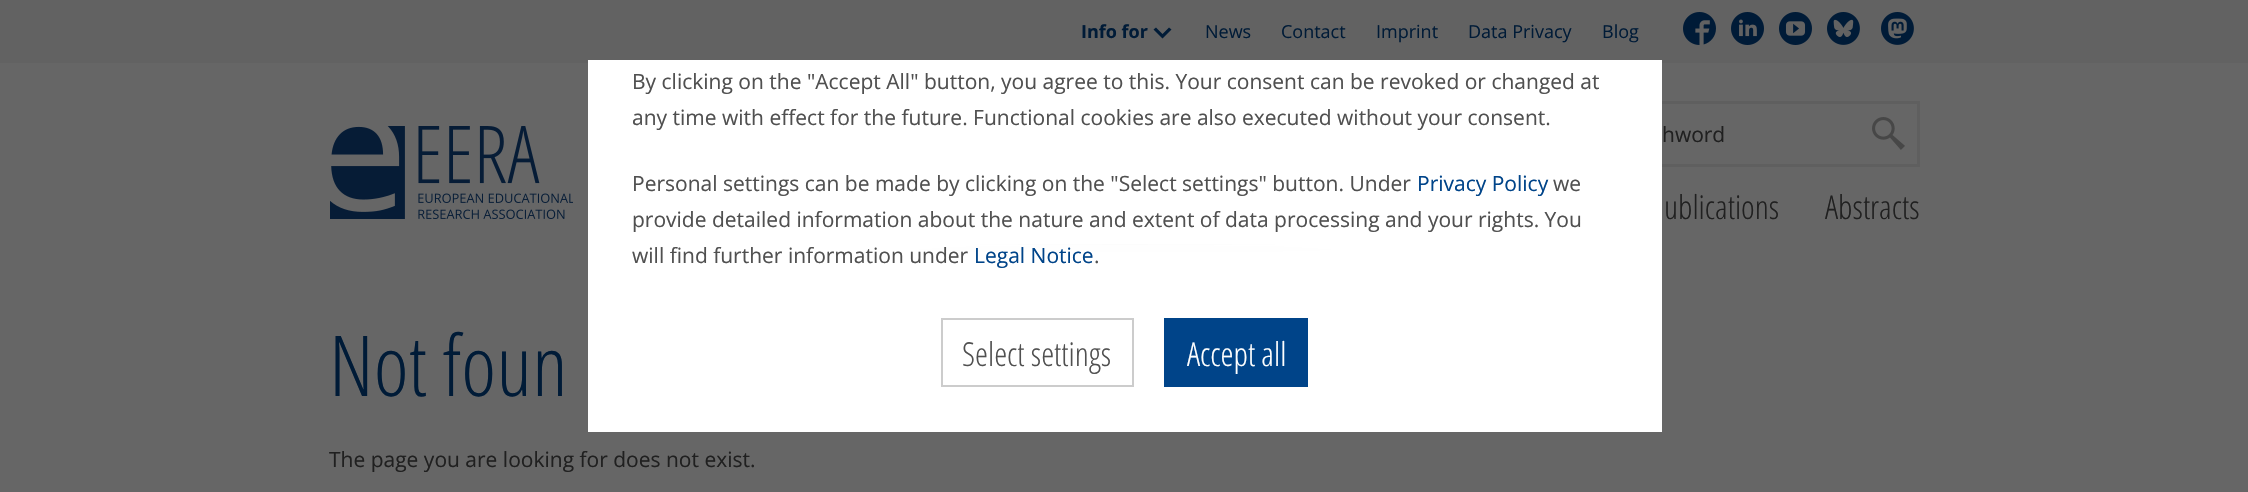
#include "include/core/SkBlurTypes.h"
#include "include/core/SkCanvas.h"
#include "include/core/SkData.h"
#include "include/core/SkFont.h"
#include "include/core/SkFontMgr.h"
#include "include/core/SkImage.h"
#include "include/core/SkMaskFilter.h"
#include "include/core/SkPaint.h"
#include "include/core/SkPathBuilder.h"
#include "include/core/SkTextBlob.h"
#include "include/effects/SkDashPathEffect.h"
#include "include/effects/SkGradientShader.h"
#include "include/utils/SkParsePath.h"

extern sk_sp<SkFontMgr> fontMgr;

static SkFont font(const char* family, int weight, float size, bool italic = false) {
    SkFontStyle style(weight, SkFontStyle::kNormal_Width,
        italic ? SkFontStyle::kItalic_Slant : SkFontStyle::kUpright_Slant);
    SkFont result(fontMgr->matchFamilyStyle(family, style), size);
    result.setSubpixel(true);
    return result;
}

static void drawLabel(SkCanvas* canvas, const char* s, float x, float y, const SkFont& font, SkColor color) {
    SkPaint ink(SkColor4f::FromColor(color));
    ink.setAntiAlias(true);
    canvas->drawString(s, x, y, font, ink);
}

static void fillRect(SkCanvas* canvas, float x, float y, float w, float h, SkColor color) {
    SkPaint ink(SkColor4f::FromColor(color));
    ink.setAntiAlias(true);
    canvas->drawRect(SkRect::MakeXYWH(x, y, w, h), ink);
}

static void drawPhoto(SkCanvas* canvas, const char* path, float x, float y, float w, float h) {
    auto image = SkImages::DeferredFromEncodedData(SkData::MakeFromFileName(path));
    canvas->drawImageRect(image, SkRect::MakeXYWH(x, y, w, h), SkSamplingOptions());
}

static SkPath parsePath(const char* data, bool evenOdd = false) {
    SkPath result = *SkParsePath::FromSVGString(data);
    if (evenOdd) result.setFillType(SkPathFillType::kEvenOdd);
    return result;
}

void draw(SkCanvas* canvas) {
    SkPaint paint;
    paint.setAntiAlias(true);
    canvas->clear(0xFF666666);
    fillRect(canvas, 0, 0, 2248, 63, 0xFF626262);
    SkFont font1 = font("Open Sans", 700, 18);
    drawLabel(canvas, "Info for", 1081, 38, font1, 0xFF001B37);
    paint.setColor(0xFF001B37);
    canvas->drawPath(parsePath("M1171.5 29.5L1169 27.5L1162.5 34L1156 27.5L1153.5 29.5L1162.5 38.5Z"), paint);
    SkFont font2 = font("Open Sans", 400, 18);
    drawLabel(canvas, "News", 1205, 38, font2, 0xFF001B37);
    drawLabel(canvas, "Contact", 1281, 38, font2, 0xFF001B37);
    drawLabel(canvas, "Imprint", 1376, 38, font2, 0xFF001B37);
    drawLabel(canvas, "Data Privacy", 1468, 38, font2, 0xFF001B37);
    drawLabel(canvas, "Blog", 1602, 38, font2, 0xFF001B37);
    drawPhoto(canvas, "assets/img1.png", 1683, 12, 33, 33);
    drawPhoto(canvas, "assets/img2.png", 1731, 12, 33, 33);
    drawPhoto(canvas, "assets/img3.png", 1779, 12, 33, 33);
    drawPhoto(canvas, "assets/img4.png", 1827, 12, 33, 33);
    drawPhoto(canvas, "assets/img5.png", 1881, 12, 33, 33);
    drawPhoto(canvas, "assets/img6.png", 330, 126, 243, 93);
    paint.setStroke(true);
    paint.setStrokeWidth(3);
    paint.setColor(0xFF5F5F5F);
    canvas->drawRect(SkRect::MakeXYWH(1593.5f, 102.5f, 325, 63), paint);
    SkFont font3 = font("Open Sans", 400, 21);
    drawLabel(canvas, "hword", 1662, 142, font3, 0xFF202020);
    drawPhoto(canvas, "assets/img7.png", 1872, 117, 33, 33);
    SkFont font4 = font("Open Sans Condensed", 300, 33);
    drawLabel(canvas, "ublications", 1664, 219, font4, 0xFF202020);
    drawLabel(canvas, "Abstracts", 1825, 219, font4, 0xFF202020);
    SkFont font5 = font("Open Sans Condensed", 300, 84);
    drawLabel(canvas, "Not foun", 329, 396, font5, 0xFF001B37);
    drawLabel(canvas, "The page you are looking for does not exist.", 329, 467, font3, 0xFF202020);
    fillRect(canvas, 588, 60, 1074, 372, 0xFFFFFFFF);
    paint.setStroke(false);
    {
        const SkColor colors[] = {0xFFCCCCCC, 0xFFFFFFFF};
        const float stops[] = {0, 1};
        SkMatrix m = SkMatrix::Translate(1125, 273).preScale(537, 30);
        paint.setShader(SkGradientShader::MakeRadial({0, 0}, 1, colors, stops, 2, SkTileMode::kClamp, 0, &m));
        paint.setAlpha(255);
    }
    canvas->drawRect(SkRect::MakeXYWH(736, 244, 778, 11), paint);
    {
        const SkColor colors[] = {0x00FFFFFF, 0xFFFFFFFF};
        const float stops[] = {0, 0.7f};
        const SkPoint ends[] = {{1125, 213}, {1125, 273}};
        paint.setShader(SkGradientShader::MakeLinear(ends, colors, stops, 2, SkTileMode::kClamp));
        paint.setAlpha(255);
    }
    canvas->drawRect(SkRect::MakeXYWH(736, 245, 778, 10), paint);
    drawLabel(canvas, "By clicking on the \"Accept All\" button, you agree to this. Your consent can be revoked or changed at", 632, 89, font3, 0xFF505050);
    drawLabel(canvas, "any time with effect for the future. Functional cookies are also executed without your consent.", 632, 125, font3, 0xFF505050);
    drawLabel(canvas, "Personal settings can be made by clicking on the \"Select settings\" button. Under", 632, 191, font3, 0xFF505050);
    drawLabel(canvas, "Privacy Policy", 1417, 191, font3, 0xFF004489);
    drawLabel(canvas, "we", 1553, 191, font3, 0xFF505050);
    drawLabel(canvas, "provide detailed information about the nature and extent of data processing and your rights. You", 632, 227, font3, 0xFF505050);
    drawLabel(canvas, "will find further information under", 632, 263, font3, 0xFF505050);
    drawLabel(canvas, "Legal Notice", 974, 263, font3, 0xFF004489);
    drawLabel(canvas, ".", 1094, 263, font3, 0xFF505050);
    paint.setStroke(true);
    paint.setStrokeWidth(2);
    paint.setShader(nullptr);
    paint.setColor(0xFFCCCCCC);
    canvas->drawRect(SkRect::MakeXYWH(942, 319, 191, 67), paint);
    drawLabel(canvas, "Select settings", 962, 366, font4, 0xFF505050);
    fillRect(canvas, 1164, 318, 144, 69, 0xFF004489);
    drawLabel(canvas, "Accept all", 1187, 366, font4, 0xFFFFFFFF);
}
